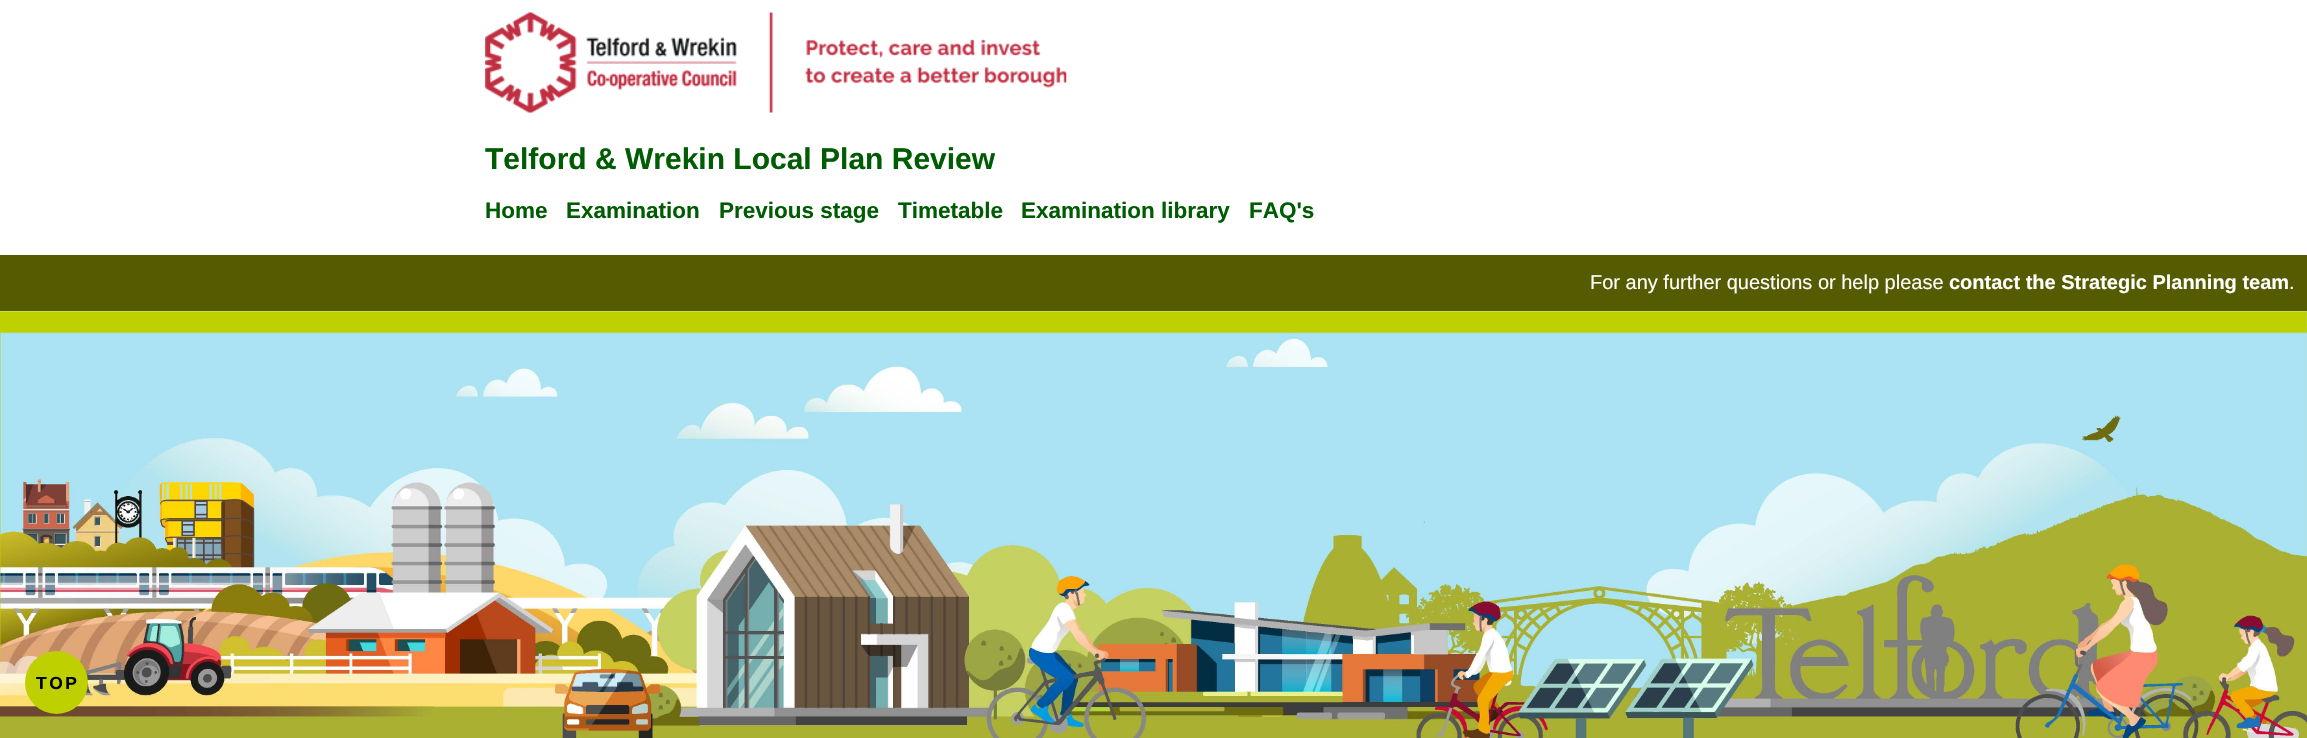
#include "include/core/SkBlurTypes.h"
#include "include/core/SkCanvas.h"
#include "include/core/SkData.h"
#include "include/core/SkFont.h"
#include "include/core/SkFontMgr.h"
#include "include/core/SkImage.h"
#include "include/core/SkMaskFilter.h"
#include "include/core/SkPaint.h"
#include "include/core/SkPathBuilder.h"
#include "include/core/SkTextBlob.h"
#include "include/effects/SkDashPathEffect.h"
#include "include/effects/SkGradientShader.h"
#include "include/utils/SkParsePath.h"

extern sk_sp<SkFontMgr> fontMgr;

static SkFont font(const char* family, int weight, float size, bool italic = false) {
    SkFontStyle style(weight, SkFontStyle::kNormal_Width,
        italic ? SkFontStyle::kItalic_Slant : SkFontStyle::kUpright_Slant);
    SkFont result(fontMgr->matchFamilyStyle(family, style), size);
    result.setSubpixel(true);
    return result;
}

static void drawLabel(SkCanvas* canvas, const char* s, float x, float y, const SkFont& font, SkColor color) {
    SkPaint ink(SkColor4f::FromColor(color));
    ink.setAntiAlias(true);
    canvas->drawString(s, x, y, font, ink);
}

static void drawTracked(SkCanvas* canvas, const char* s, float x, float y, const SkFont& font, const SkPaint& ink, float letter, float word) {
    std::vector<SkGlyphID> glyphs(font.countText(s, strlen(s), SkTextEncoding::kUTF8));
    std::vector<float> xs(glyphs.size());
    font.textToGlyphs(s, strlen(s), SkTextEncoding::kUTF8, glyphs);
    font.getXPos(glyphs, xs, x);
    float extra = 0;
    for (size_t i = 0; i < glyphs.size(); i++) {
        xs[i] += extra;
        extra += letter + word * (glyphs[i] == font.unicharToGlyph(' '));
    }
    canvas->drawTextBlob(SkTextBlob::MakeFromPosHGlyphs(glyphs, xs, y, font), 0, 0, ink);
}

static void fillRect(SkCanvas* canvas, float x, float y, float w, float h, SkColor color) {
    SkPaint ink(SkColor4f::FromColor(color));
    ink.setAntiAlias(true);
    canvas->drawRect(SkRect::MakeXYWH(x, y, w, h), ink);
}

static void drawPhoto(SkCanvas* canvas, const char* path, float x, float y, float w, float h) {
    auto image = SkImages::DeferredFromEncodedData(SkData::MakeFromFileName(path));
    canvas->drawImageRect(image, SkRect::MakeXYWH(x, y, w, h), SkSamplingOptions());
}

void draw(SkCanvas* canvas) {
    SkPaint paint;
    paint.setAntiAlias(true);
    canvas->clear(0xFFFFFFFF);
    drawPhoto(canvas, "assets/img1.png", 485, 12, 582, 101);
    SkFont font1 = font("Liberation Sans", 700, 30);
    drawLabel(canvas, "Telford & Wrekin Local Plan Review", 485, 169, font1, 0xFF005C02);
    SkFont font2 = font("Liberation Sans", 700, 22.5f);
    drawLabel(canvas, "Home", 485, 218, font2, 0xFF005C02);
    drawLabel(canvas, "Examination", 566, 218, font2, 0xFF005C02);
    drawLabel(canvas, "Previous stage", 719, 218, font2, 0xFF005C02);
    drawLabel(canvas, "Timetable", 898, 218, font2, 0xFF005C02);
    drawLabel(canvas, "Examination library", 1021, 218, font2, 0xFF005C02);
    drawLabel(canvas, "FAQ's", 1249, 218, font2, 0xFF005C02);
    fillRect(canvas, 0, 255, 2307, 56, 0xFF555B01);
    SkFont font3 = font("Liberation Sans", 400, 20);
    drawLabel(canvas, "For any further questions or help please", 1590, 289, font3, 0xFFFFFFFF);
    SkFont font4 = font("Liberation Sans", 700, 20);
    drawLabel(canvas, "contact the Strategic Planning team", 1949, 289, font4, 0xFFFFFFFF);
    drawLabel(canvas, ".", 2289, 289, font3, 0xFFFFFFFF);
    drawPhoto(canvas, "assets/img2.png", 0, 311, 2307, 427);
    paint.setColor(0xFFBED000);
    canvas->drawCircle(56.5f, 682.5f, 31.5f, paint);
    SkFont font5 = font("Liberation Sans", 700, 17.5f);
    paint.setColor(0xFF000000);
    drawTracked(canvas, "TOP", 36, 689, font5, paint, 2.5f, 0);
}
